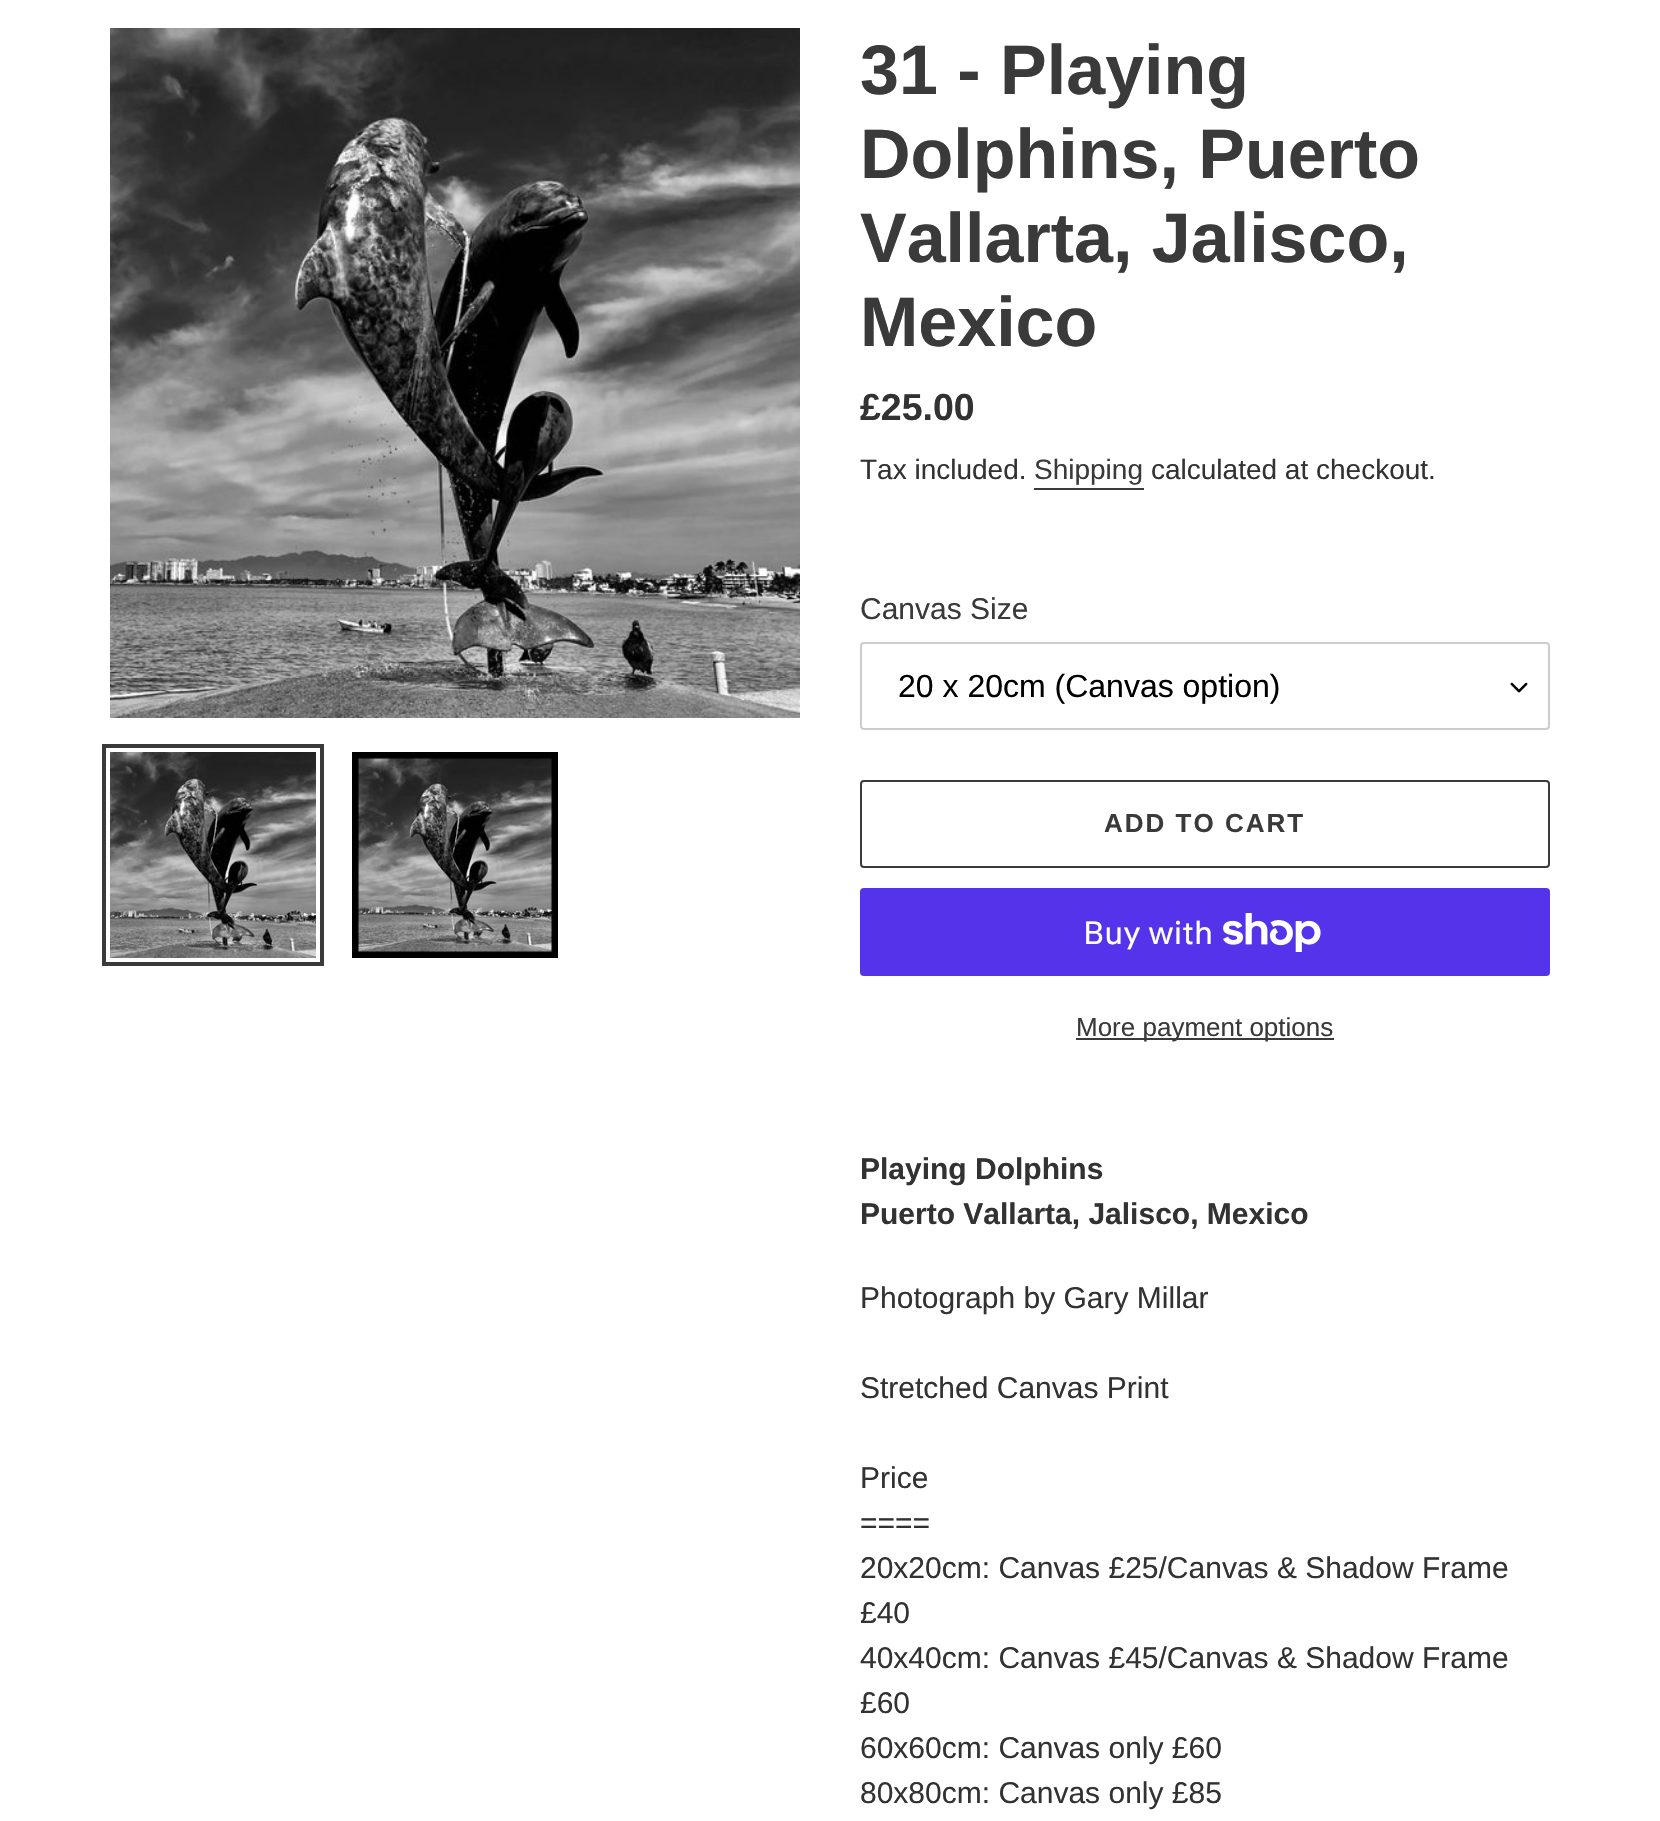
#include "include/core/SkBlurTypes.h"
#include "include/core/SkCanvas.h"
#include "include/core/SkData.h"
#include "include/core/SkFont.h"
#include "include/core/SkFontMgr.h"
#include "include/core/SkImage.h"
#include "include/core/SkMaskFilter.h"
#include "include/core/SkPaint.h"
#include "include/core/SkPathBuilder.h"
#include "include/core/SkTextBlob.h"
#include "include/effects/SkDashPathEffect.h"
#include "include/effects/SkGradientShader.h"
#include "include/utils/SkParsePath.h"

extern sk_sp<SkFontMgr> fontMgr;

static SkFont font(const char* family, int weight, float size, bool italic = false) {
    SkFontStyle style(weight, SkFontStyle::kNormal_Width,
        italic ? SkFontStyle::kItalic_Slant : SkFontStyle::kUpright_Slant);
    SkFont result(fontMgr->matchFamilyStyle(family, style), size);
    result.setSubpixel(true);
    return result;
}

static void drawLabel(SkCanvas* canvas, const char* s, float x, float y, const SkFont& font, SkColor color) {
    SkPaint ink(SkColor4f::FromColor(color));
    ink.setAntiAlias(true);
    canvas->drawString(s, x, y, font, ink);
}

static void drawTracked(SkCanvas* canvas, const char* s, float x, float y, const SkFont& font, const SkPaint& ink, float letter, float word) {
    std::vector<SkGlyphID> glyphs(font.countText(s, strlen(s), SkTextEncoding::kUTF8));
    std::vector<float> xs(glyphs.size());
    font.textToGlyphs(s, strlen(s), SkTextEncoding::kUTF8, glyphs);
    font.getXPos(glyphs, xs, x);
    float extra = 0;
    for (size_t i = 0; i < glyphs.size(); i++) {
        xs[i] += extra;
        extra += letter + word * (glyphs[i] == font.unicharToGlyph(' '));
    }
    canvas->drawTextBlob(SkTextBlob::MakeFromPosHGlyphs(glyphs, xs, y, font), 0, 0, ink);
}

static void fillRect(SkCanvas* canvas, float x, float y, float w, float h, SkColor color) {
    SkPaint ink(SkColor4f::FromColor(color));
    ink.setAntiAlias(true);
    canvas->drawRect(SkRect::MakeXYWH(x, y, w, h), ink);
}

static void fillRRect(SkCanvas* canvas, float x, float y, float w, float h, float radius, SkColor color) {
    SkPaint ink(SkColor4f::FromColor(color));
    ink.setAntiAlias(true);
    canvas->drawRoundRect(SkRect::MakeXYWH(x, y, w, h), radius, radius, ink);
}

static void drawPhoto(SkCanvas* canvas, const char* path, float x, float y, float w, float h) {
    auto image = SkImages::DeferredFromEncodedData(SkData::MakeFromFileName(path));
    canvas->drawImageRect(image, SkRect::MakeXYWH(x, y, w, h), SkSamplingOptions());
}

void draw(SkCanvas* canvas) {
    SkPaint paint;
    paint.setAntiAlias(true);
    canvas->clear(0xFFFFFFFF);
    drawPhoto(canvas, "assets/img1.png", 110, 28, 690, 690);
    paint.setStroke(true);
    paint.setStrokeWidth(4);
    paint.setColor(0xFF3A3A3A);
    canvas->drawRect(SkRect::MakeXYWH(104, 746, 218, 218), paint);
    drawPhoto(canvas, "assets/img2.png", 110, 752, 206, 206);
    drawPhoto(canvas, "assets/img3.png", 352, 752, 206, 206);
    SkFont font1 = font("Liberation Sans", 700, 70);
    drawLabel(canvas, "31 - Playing", 860, 94, font1, 0xFF3A3A3A);
    drawLabel(canvas, "Dolphins, Puerto", 860, 178, font1, 0xFF3A3A3A);
    drawLabel(canvas, "Vallarta, Jalisco,", 860, 262, font1, 0xFF3A3A3A);
    drawLabel(canvas, "Mexico", 860, 346, font1, 0xFF3A3A3A);
    SkFont font2 = font("Liberation Sans", 700, 37.5f);
    drawLabel(canvas, "£25.00", 860, 420, font2, 0xFF333232);
    SkFont font3 = font("Liberation Sans", 400, 28);
    drawLabel(canvas, "Tax included.", 860, 479, font3, 0xFF333232);
    drawLabel(canvas, "Shipping", 1034, 479, font3, 0xFF3A3A3A);
    fillRect(canvas, 1034, 488, 110, 2, 0xFF3A3A3A);
    drawLabel(canvas, "calculated at checkout.", 1151, 479, font3, 0xFF333232);
    SkFont font4 = font("Liberation Sans", 400, 30);
    drawLabel(canvas, "Canvas Size", 860, 619, font4, 0xFF3A3A3A);
    drawPhoto(canvas, "assets/img4.png", 1510, 682, 18, 11);
    paint.setStrokeWidth(2);
    paint.setColor(0xFFCCCCCC);
    canvas->drawRoundRect(SkRect::MakeXYWH(861, 643, 688, 86), 3, 3, paint);
    SkFont font5 = font("Liberation Sans", 400, 32);
    drawLabel(canvas, "20 x 20cm (Canvas option)", 898, 697, font5, 0xFF000000);
    paint.setColor(0xFF3A3A3A);
    canvas->drawRoundRect(SkRect::MakeXYWH(861, 781, 688, 86), 3, 3, paint);
    SkFont font6 = font("Liberation Sans", 700, 26);
    paint.setStroke(false);
    drawTracked(canvas, "ADD TO CART", 1104, 832, font6, paint, 2, 0);
    fillRRect(canvas, 860, 888, 690, 88, 4, 0xFF5433EB);
    SkFont font7 = font("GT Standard", 400, 32);
    drawLabel(canvas, "Buy with", 1083, 944, font7, 0xFFFFFFFF);
    drawPhoto(canvas, "assets/img5.png", 1223, 913, 98, 39);
    fillRect(canvas, 1076, 1038, 258, 2, 0xFF3A3A3A);
    SkFont font8 = font("Liberation Sans", 400, 26);
    drawLabel(canvas, "More payment options", 1076, 1036, font8, 0xFF3A3A3A);
    SkFont font9 = font("Liberation Sans", 700, 30);
    drawLabel(canvas, "Playing Dolphins", 860, 1179, font9, 0xFF333232);
    drawLabel(canvas, "Puerto Vallarta, Jalisco, Mexico", 860, 1224, font9, 0xFF333232);
    drawLabel(canvas, "Photograph by Gary Millar", 860, 1308, font4, 0xFF333232);
    drawLabel(canvas, "Stretched Canvas Print", 860, 1398, font4, 0xFF333232);
    drawLabel(canvas, "Price", 860, 1488, font4, 0xFF333232);
    drawLabel(canvas, "====", 860, 1533, font4, 0xFF333232);
    drawLabel(canvas, "20x20cm: Canvas £25/Canvas & Shadow Frame", 860, 1578, font4, 0xFF333232);
    drawLabel(canvas, "£40", 860, 1623, font4, 0xFF333232);
    drawLabel(canvas, "40x40cm: Canvas £45/Canvas & Shadow Frame", 860, 1668, font4, 0xFF333232);
    drawLabel(canvas, "£60", 860, 1713, font4, 0xFF333232);
    drawLabel(canvas, "60x60cm: Canvas only £60", 860, 1758, font4, 0xFF333232);
    drawLabel(canvas, "80x80cm: Canvas only £85", 860, 1803, font4, 0xFF333232);
}
